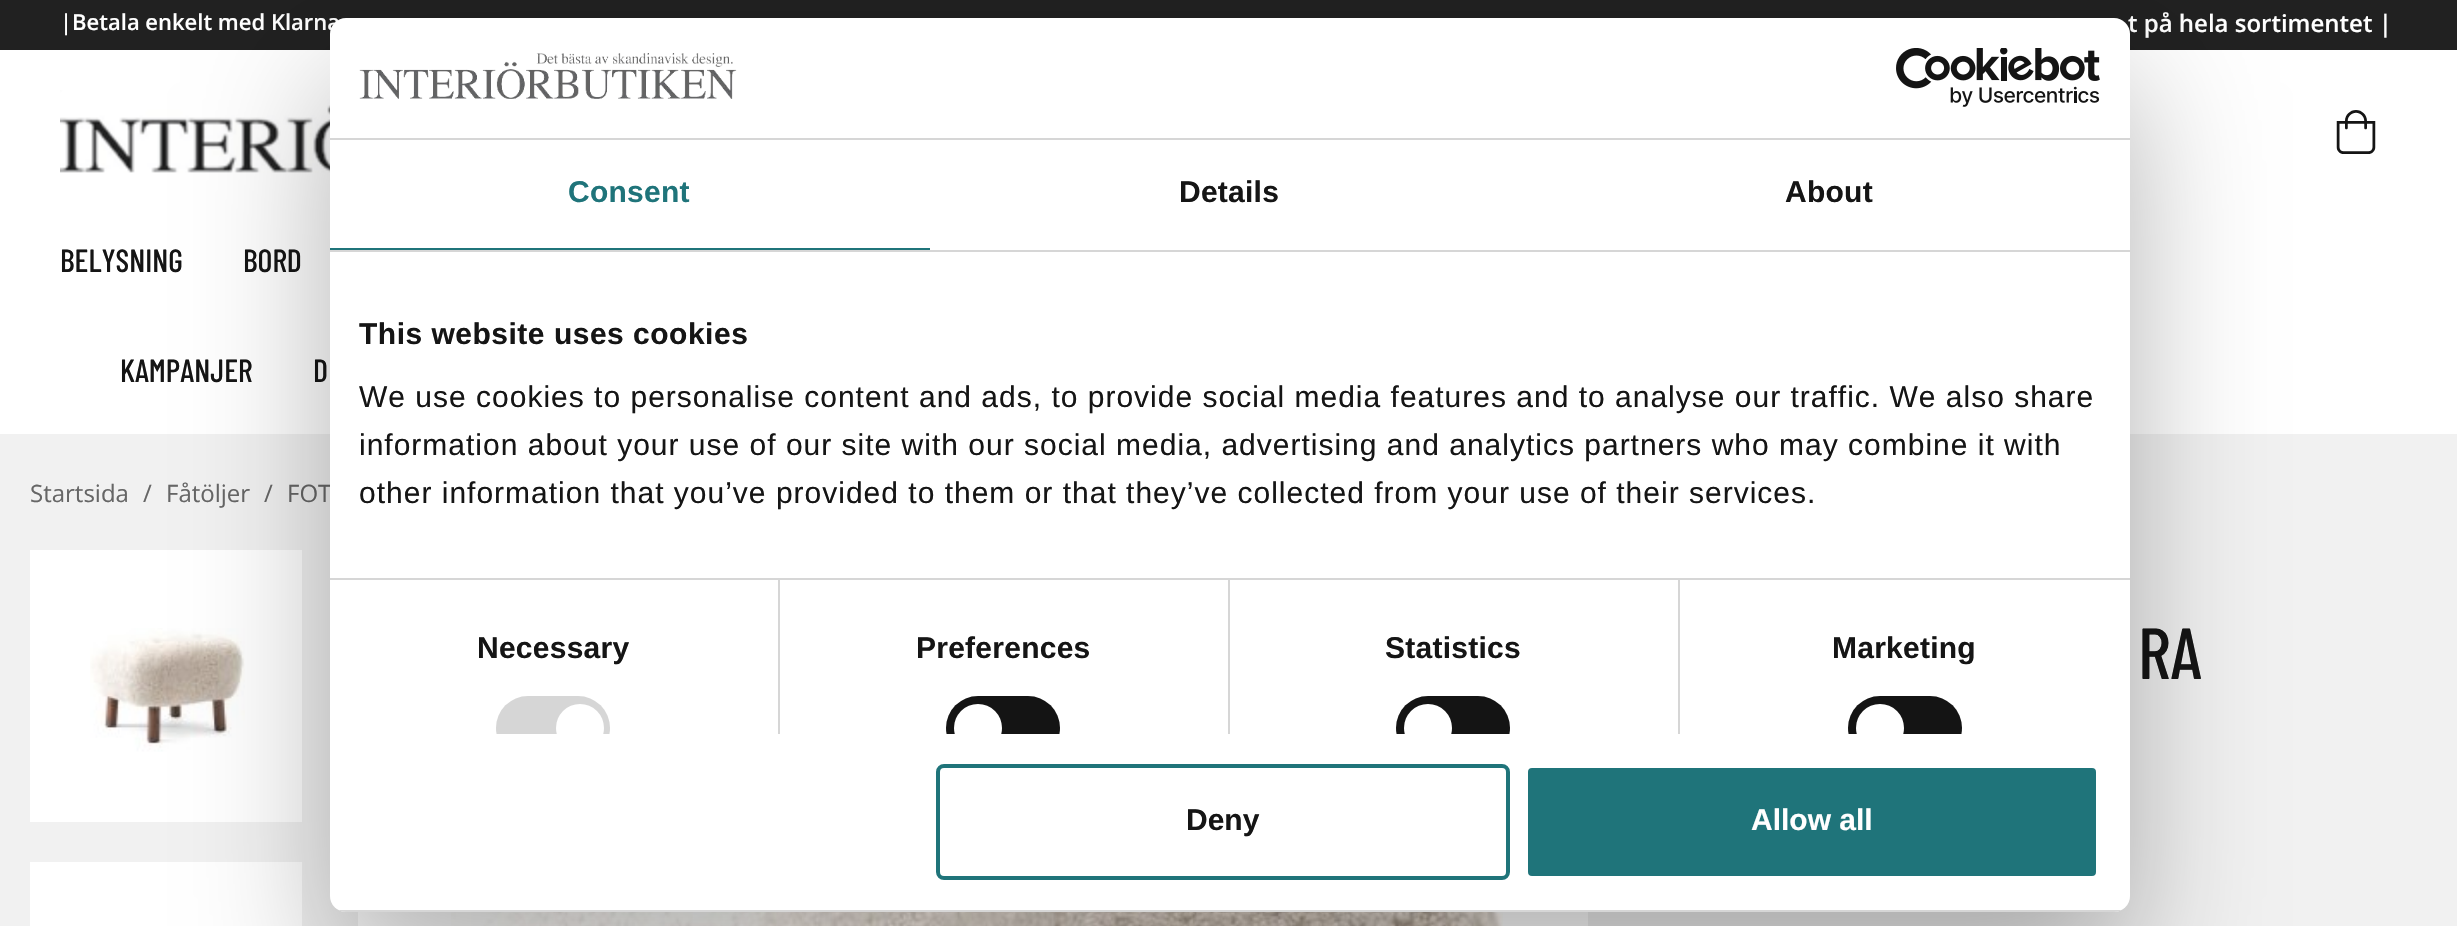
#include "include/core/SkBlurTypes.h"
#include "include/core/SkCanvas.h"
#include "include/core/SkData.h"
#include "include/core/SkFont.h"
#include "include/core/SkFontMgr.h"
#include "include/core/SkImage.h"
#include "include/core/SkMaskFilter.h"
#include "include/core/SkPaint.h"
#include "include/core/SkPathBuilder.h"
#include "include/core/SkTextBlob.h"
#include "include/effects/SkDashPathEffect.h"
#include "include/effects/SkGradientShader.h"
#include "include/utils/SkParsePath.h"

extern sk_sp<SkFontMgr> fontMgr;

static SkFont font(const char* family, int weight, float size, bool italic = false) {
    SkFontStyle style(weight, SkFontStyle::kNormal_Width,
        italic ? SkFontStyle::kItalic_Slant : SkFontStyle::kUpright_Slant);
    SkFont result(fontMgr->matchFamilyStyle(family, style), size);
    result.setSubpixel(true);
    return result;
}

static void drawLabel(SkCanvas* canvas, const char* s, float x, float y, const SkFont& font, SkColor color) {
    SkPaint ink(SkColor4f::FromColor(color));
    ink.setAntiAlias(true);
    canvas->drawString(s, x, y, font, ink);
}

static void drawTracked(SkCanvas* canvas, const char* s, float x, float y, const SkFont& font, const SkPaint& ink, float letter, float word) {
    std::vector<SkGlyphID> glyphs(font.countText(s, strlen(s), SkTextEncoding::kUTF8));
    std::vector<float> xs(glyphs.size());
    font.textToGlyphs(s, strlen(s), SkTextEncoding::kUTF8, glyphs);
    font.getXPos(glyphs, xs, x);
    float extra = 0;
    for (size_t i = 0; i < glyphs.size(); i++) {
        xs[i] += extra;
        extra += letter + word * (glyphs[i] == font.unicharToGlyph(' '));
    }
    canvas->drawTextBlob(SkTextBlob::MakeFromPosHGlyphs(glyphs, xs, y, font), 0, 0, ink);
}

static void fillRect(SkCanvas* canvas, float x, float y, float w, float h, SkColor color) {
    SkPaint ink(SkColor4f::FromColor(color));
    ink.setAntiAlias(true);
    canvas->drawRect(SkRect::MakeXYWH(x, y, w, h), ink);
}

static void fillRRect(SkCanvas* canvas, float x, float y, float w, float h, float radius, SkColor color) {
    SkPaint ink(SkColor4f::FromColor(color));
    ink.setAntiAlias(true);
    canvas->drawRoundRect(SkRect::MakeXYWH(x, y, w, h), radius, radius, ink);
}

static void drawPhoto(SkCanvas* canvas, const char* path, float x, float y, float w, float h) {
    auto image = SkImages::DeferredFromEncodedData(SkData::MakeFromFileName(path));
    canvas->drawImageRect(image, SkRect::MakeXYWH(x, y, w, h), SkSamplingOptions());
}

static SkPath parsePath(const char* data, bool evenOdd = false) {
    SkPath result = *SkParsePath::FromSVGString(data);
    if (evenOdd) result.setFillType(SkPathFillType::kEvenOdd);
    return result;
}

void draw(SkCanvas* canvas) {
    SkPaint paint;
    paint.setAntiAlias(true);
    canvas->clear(0xFFFFFFFF);
    fillRect(canvas, 0, 0, 2457, 50, 0xFF212121);
    SkFont font1 = font("Open Sans", 600, 22);
    drawLabel(canvas, "|Betala enkelt med Klarna", 60, 30, font1, 0xFFFFFFFF);
    SkFont font2 = font("Open Sans", 600, 24);
    drawLabel(canvas, "t på hela sortimentet |", 2128, 32, font2, 0xFFFFFFFF);
    drawPhoto(canvas, "assets/img1.png", 60, 90, 270, 83);
    drawPhoto(canvas, "assets/img2.png", 2336, 110, 40, 44);
    SkFont font3 = font("Barlow Condensed", 500, 32);
    drawLabel(canvas, "BELYSNING", 60, 272, font3, 0xFF151515);
    drawLabel(canvas, "BORD", 243, 272, font3, 0xFF151515);
    drawLabel(canvas, "KAMPANJER", 120, 382, font3, 0xFF151515);
    drawLabel(canvas, "D", 313, 382, font3, 0xFF151515);
    fillRect(canvas, 0, 434, 2457, 492, 0xFFF1F1F1);
    SkFont font4 = font("Open Sans", 400, 24);
    drawLabel(canvas, "Startsida", 30, 502, font4, 0xFF666666);
    drawLabel(canvas, "/", 143, 502, font4, 0xFF666666);
    drawLabel(canvas, "Fåtöljer", 166, 502, font4, 0xFF666666);
    drawLabel(canvas, "/", 264, 502, font4, 0xFF666666);
    drawLabel(canvas, "FOT", 287, 502, font4, 0xFF666666);
    fillRect(canvas, 30, 550, 272, 272, 0xFFFFFFFF);
    drawPhoto(canvas, "assets/img3.png", 90, 628, 155, 124);
    fillRect(canvas, 30, 862, 272, 64, 0xFFFFFFFF);
    fillRect(canvas, 358, 912, 1230, 14, 0xFFFFFFFF);
    drawPhoto(canvas, "assets/img4.png", 451, 912, 1052, 14);
    SkFont font5 = font("Barlow Condensed", 500, 72);
    drawLabel(canvas, "RA", 2138, 679, font5, 0xFF151515);
    paint.setColor(0x4D000000);
    paint.setMaskFilter(SkMaskFilter::MakeBlur(kNormal_SkBlurStyle, 68));
    canvas->drawRoundRect(SkRect::MakeXYWH(330, 82, 1800, 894), 16, 16, paint);
    paint.setMaskFilter(nullptr);
    fillRRect(canvas, 330, 18, 1800, 894, 16, 0xFFFFFFFF);
    fillRect(canvas, 330, 138, 1800, 2, 0xFFD6D6D6);
    drawPhoto(canvas, "assets/img5.png", 359, 53, 378, 46);
    drawPhoto(canvas, "assets/img6.png", 1896, 48, 204, 59);
    fillRect(canvas, 330, 250, 1800, 2, 0xFFD6D6D6);
    fillRect(canvas, 330, 248, 600, 2, 0xFF1F747A);
    SkFont font6 = font("Liberation Sans", 700, 30);
    paint.setColor(0xFF1F747A);
    drawTracked(canvas, "Consent", 568, 202, font6, paint, 0.25f, 0);
    paint.setColor(0xFF151515);
    drawTracked(canvas, "Details", 1179, 202, font6, paint, 0.25f, 0);
    drawTracked(canvas, "About", 1785, 202, font6, paint, 0.25f, 0);
    fillRect(canvas, 330, 578, 1800, 2, 0xFFD6D6D6);
    drawTracked(canvas, "This website uses cookies", 359, 344, font6, paint, 0.5f, 0);
    SkFont font7 = font("Liberation Sans", 400, 30);
    drawTracked(canvas, "We use cookies to personalise content and ads, to provide social media features and to analyse our traffic. We also share", 359, 407, font7, paint, 1, 0);
    drawTracked(canvas, "information about your use of our site with our social media, advertising and analytics partners who may combine it with", 359, 455, font7, paint, 1, 0);
    drawTracked(canvas, "other information that you’ve provided to them or that they’ve collected from your use of their services.", 359, 503, font7, paint, 1, 0);
    fillRect(canvas, 778, 580, 2, 154, 0xFFD6D6D6);
    drawTracked(canvas, "Necessary", 477, 658, font6, paint, 0.25f, 0);
    canvas->save();
    canvas->clipRect(SkRect::MakeXYWH(330, 252, 1800, 482));
    fillRRect(canvas, 496, 696, 114, 64, 32, 0xFFD6D6D6);
    paint.setColor(0xFFFFFFFF);
    canvas->drawCircle(580, 728, 24, paint);
    canvas->restore();
    fillRect(canvas, 1228, 580, 2, 154, 0xFFD6D6D6);
    paint.setColor(0xFF151515);
    drawTracked(canvas, "Preferences", 916, 658, font6, paint, 0.25f, 0);
    canvas->save();
    canvas->clipRect(SkRect::MakeXYWH(330, 252, 1800, 482));
    fillRRect(canvas, 946, 696, 114, 64, 32, 0xFF141414);
    paint.setColor(0xFFFFFFFF);
    canvas->drawCircle(978, 728, 24, paint);
    canvas->restore();
    fillRect(canvas, 1678, 580, 2, 154, 0xFFD6D6D6);
    paint.setColor(0xFF151515);
    drawTracked(canvas, "Statistics", 1385, 658, font6, paint, 0.25f, 0);
    canvas->save();
    canvas->clipRect(SkRect::MakeXYWH(330, 252, 1800, 482));
    fillRRect(canvas, 1396, 696, 114, 64, 32, 0xFF141414);
    paint.setColor(0xFFFFFFFF);
    canvas->drawCircle(1428, 728, 24, paint);
    canvas->restore();
    paint.setColor(0xFF151515);
    drawTracked(canvas, "Marketing", 1832, 658, font6, paint, 0.25f, 0);
    canvas->save();
    canvas->clipRect(SkRect::MakeXYWH(330, 252, 1800, 482));
    fillRRect(canvas, 1848, 696, 114, 64, 32, 0xFF141414);
    paint.setColor(0xFFFFFFFF);
    canvas->drawCircle(1880, 728, 24, paint);
    canvas->restore();
    canvas->save();
    canvas->clipPath(parsePath("M346 18H2114C2123 18 2130 25 2130 34V896C2130 905 2123 912 2114 912H346C337 912 330 905 330 896V34C330 25 337 18 346 18Z"), true);
    fillRect(canvas, 330, 910, 1800, 2, 0xFFD6D6D6);
    canvas->restore();
    paint.setStroke(true);
    paint.setStrokeWidth(4);
    paint.setColor(0xFF1F747A);
    canvas->drawRoundRect(SkRect::MakeXYWH(938, 766, 570, 112), 6, 6, paint);
    drawLabel(canvas, "Deny", 1186, 830, font6, 0xFF151515);
    paint.setStroke(false);
    canvas->drawRoundRect(SkRect::MakeXYWH(1526, 766, 572, 112), 6, 6, paint);
    paint.setStroke(true);
    paint.setColor(0xFFFFFFFF);
    canvas->drawRoundRect(SkRect::MakeXYWH(1526, 766, 572, 112), 6, 6, paint);
    drawLabel(canvas, "Allow all", 1751, 830, font6, 0xFFFFFFFF);
}
